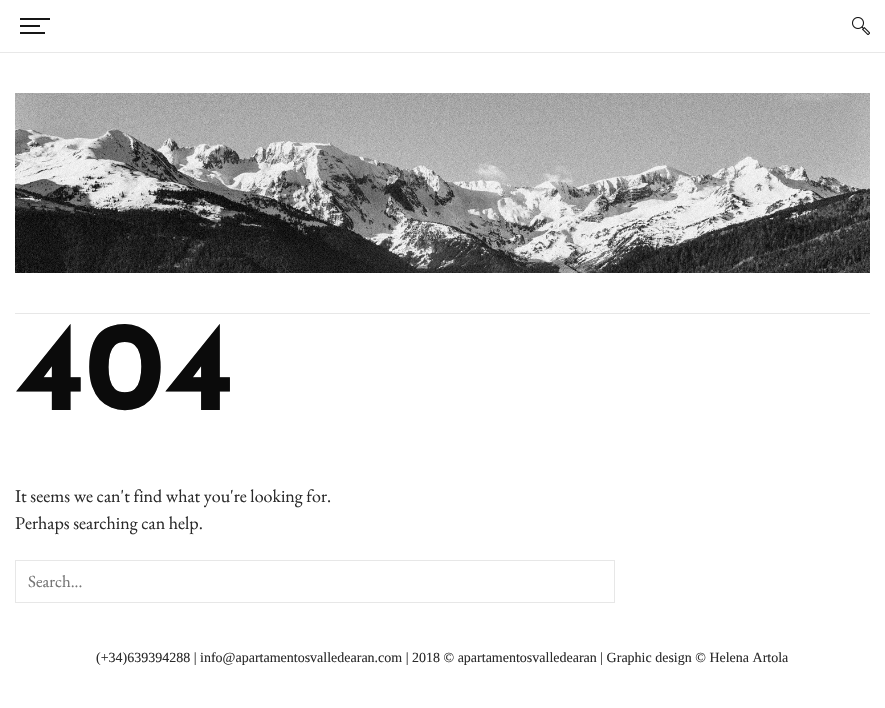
#include "include/core/SkBlurTypes.h"
#include "include/core/SkCanvas.h"
#include "include/core/SkData.h"
#include "include/core/SkFont.h"
#include "include/core/SkFontMgr.h"
#include "include/core/SkImage.h"
#include "include/core/SkMaskFilter.h"
#include "include/core/SkPaint.h"
#include "include/core/SkPathBuilder.h"
#include "include/core/SkTextBlob.h"
#include "include/effects/SkDashPathEffect.h"
#include "include/effects/SkGradientShader.h"
#include "include/utils/SkParsePath.h"

extern sk_sp<SkFontMgr> fontMgr;

static SkFont font(const char* family, int weight, float size, bool italic = false) {
    SkFontStyle style(weight, SkFontStyle::kNormal_Width,
        italic ? SkFontStyle::kItalic_Slant : SkFontStyle::kUpright_Slant);
    SkFont result(fontMgr->matchFamilyStyle(family, style), size);
    result.setSubpixel(true);
    return result;
}

static void drawLabel(SkCanvas* canvas, const char* s, float x, float y, const SkFont& font, SkColor color) {
    SkPaint ink(SkColor4f::FromColor(color));
    ink.setAntiAlias(true);
    canvas->drawString(s, x, y, font, ink);
}

static void drawTracked(SkCanvas* canvas, const char* s, float x, float y, const SkFont& font, const SkPaint& ink, float letter, float word) {
    std::vector<SkGlyphID> glyphs(font.countText(s, strlen(s), SkTextEncoding::kUTF8));
    std::vector<float> xs(glyphs.size());
    font.textToGlyphs(s, strlen(s), SkTextEncoding::kUTF8, glyphs);
    font.getXPos(glyphs, xs, x);
    float extra = 0;
    for (size_t i = 0; i < glyphs.size(); i++) {
        xs[i] += extra;
        extra += letter + word * (glyphs[i] == font.unicharToGlyph(' '));
    }
    canvas->drawTextBlob(SkTextBlob::MakeFromPosHGlyphs(glyphs, xs, y, font), 0, 0, ink);
}

static void fillRect(SkCanvas* canvas, float x, float y, float w, float h, SkColor color) {
    SkPaint ink(SkColor4f::FromColor(color));
    ink.setAntiAlias(true);
    canvas->drawRect(SkRect::MakeXYWH(x, y, w, h), ink);
}

static void drawPhoto(SkCanvas* canvas, const char* path, float x, float y, float w, float h) {
    auto image = SkImages::DeferredFromEncodedData(SkData::MakeFromFileName(path));
    canvas->drawImageRect(image, SkRect::MakeXYWH(x, y, w, h), SkSamplingOptions());
}

void draw(SkCanvas* canvas) {
    SkPaint paint;
    paint.setAntiAlias(true);
    canvas->clear(0xFFFFFFFF);
    fillRect(canvas, 0, 52, 885, 1, 0xFFE8E8E8);
    fillRect(canvas, 20, 18, 30, 2, 0xFF171717);
    fillRect(canvas, 20, 25, 20, 2, 0xFF171717);
    fillRect(canvas, 20, 32, 25, 2, 0xFF171717);
    drawPhoto(canvas, "assets/img1.png", 852, 17, 18, 18);
    drawPhoto(canvas, "assets/img2.png", 15, 93, 855, 180);
    fillRect(canvas, 15, 313, 855, 1, 0xFFE7E7E7);
    SkFont font1 = font("Josefin Sans", 700, 128);
    paint.setColor(0xFF0B0B0B);
    drawTracked(canvas, "404", 15, 410, font1, paint, -1, 0);
    SkFont font2 = font("EB Garamond", 400, 18);
    drawLabel(canvas, "It seems we can't find what you're looking for.", 15, 502, font2, 0xFF2B2B2B);
    drawLabel(canvas, "Perhaps searching can help.", 15, 529, font2, 0xFF2B2B2B);
    paint.setStroke(true);
    paint.setStrokeWidth(1);
    paint.setColor(0xFFE7E7E7);
    canvas->drawRect(SkRect::MakeXYWH(15.5f, 560.5f, 599, 42), paint);
    SkFont font3 = font("EB Garamond", 400, 17);
    drawLabel(canvas, "Search...", 28, 587, font3, 0xFF757575);
    SkFont font4 = font("Liberation Serif", 400, 14);
    drawLabel(canvas, "(+34)639394288 | info@apartamentosvalledearan.com | 2018 © apartamentosvalledearan | Graphic design © Helena Artola", 96, 662, font4, 0xFF2B2B2B);
}
